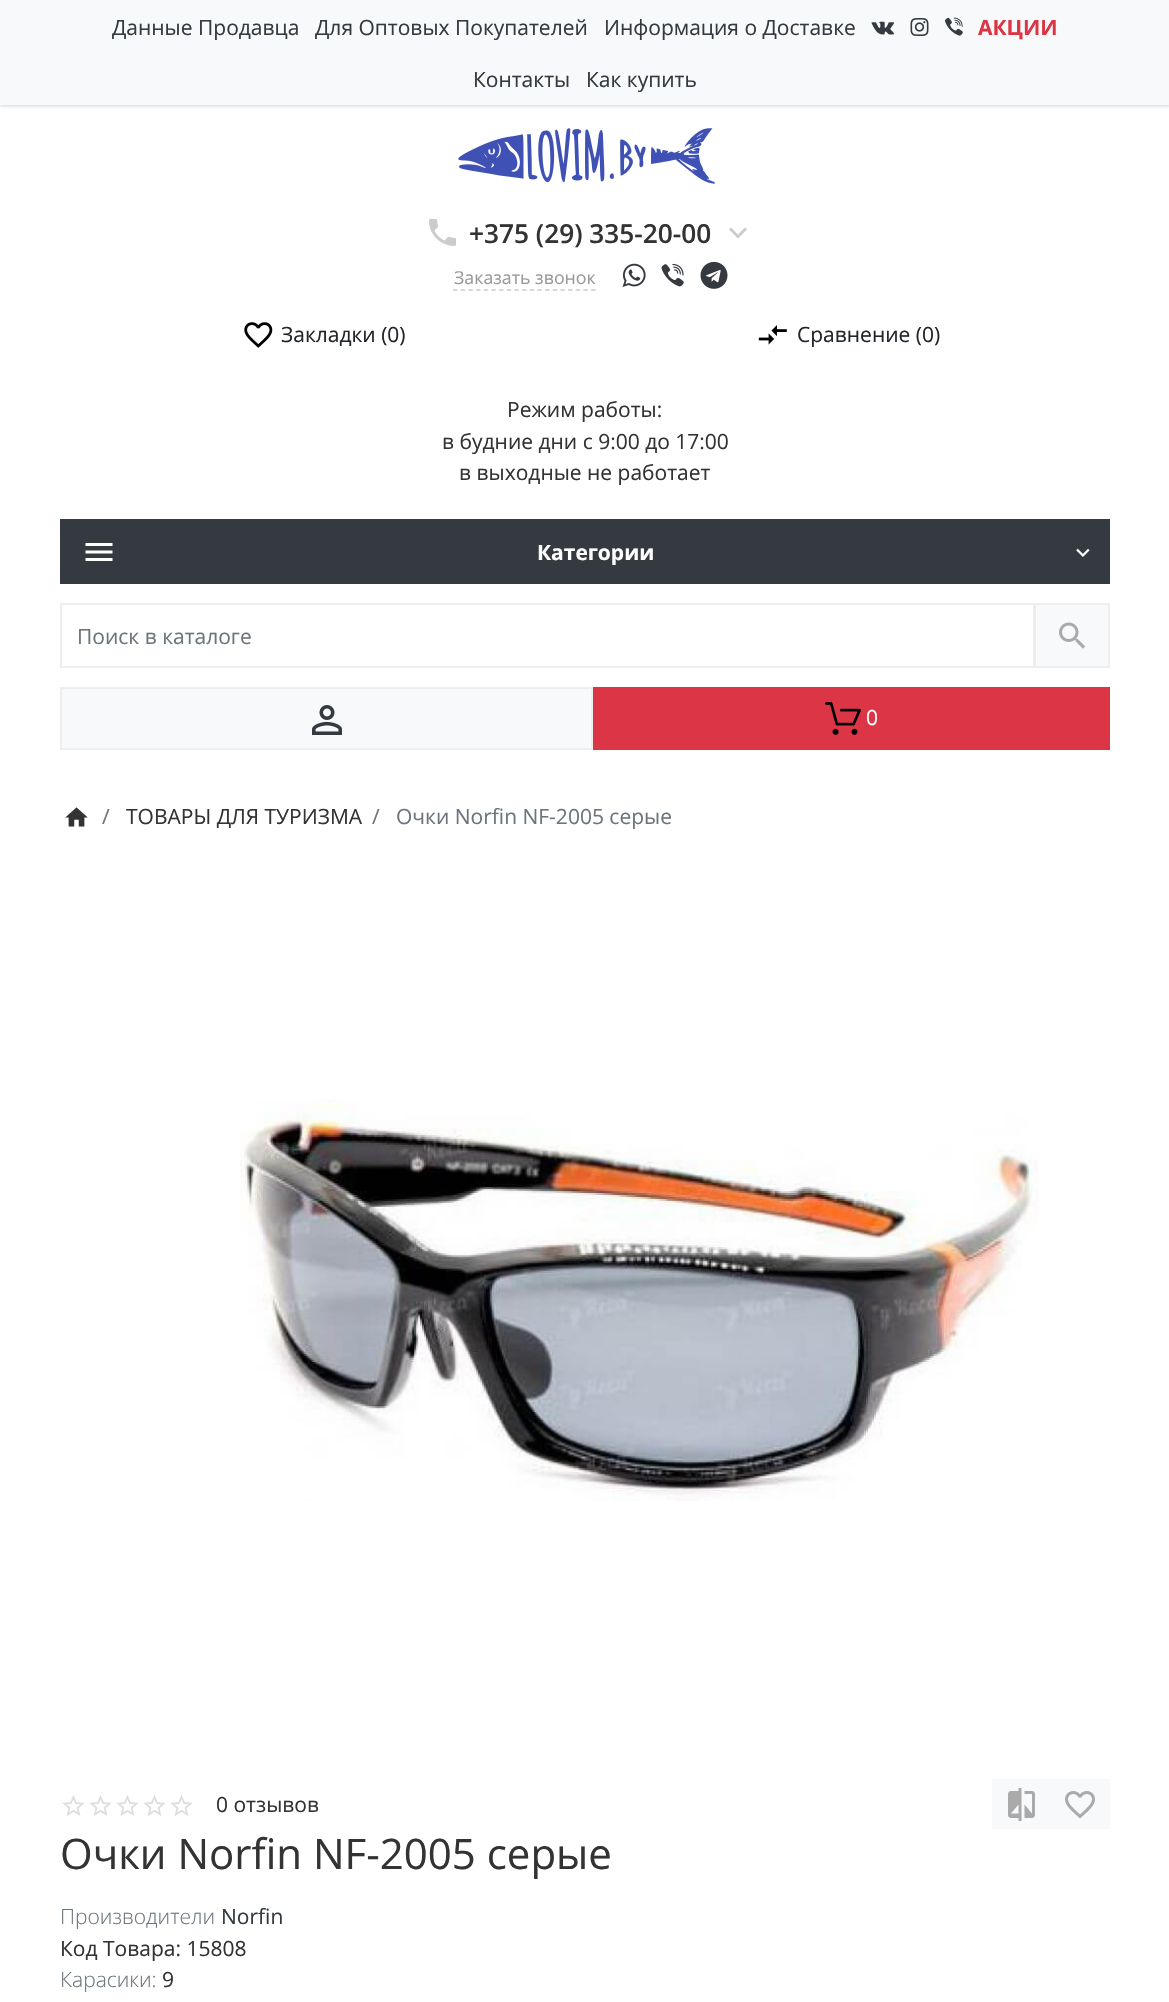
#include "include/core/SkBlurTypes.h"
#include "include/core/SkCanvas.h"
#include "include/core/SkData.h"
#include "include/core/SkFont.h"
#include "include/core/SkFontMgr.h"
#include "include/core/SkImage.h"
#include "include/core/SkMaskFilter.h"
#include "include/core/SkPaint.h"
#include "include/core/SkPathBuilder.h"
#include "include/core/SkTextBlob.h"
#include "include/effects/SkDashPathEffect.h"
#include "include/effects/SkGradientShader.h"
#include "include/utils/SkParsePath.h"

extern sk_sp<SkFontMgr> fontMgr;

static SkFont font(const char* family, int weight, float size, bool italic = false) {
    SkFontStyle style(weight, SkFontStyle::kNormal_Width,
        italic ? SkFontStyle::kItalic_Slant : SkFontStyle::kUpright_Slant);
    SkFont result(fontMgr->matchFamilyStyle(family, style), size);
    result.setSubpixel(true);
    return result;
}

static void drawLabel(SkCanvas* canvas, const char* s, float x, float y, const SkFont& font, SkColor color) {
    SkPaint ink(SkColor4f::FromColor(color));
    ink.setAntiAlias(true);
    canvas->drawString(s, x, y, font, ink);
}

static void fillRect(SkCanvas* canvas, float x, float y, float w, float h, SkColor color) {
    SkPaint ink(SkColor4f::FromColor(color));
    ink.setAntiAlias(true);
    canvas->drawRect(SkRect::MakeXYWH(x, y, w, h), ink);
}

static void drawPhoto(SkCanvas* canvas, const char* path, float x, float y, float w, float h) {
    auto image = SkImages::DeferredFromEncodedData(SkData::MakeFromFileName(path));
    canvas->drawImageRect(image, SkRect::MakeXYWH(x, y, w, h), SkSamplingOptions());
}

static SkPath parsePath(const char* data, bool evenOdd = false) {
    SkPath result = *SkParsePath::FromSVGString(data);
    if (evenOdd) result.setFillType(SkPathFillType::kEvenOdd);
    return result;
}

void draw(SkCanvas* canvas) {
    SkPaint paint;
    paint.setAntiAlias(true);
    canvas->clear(0xFFFFFFFF);
    paint.setColor(0x1A000000);
    paint.setMaskFilter(SkMaskFilter::MakeBlur(kNormal_SkBlurStyle, 1));
    canvas->drawRect(SkRect::MakeXYWH(0, 2, 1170, 105), paint);
    paint.setMaskFilter(nullptr);
    fillRect(canvas, 0, 0, 1169, 105, 0xFFF8F9FA);
    SkFont font1 = font("Open Sans", 400, 21);
    drawLabel(canvas, "Данные Продавца", 112, 35, font1, 0xFF343A40);
    drawLabel(canvas, "Для Оптовых Покупателей", 315, 35, font1, 0xFF343A40);
    drawLabel(canvas, "Информация о Доставке", 604, 35, font1, 0xFF343A40);
    drawPhoto(canvas, "assets/img1.png", 871, 21, 23, 14);
    drawPhoto(canvas, "assets/img2.png", 910, 18, 19, 18);
    drawPhoto(canvas, "assets/img3.png", 945, 17, 18, 19);
    SkFont font2 = font("Open Sans", 700, 21);
    drawLabel(canvas, "АКЦИИ", 978, 35, font2, 0xFFDC3545);
    drawLabel(canvas, "Контакты", 473, 87, font1, 0xFF343A40);
    drawLabel(canvas, "Как купить", 586, 87, font1, 0xFF343A40);
    drawPhoto(canvas, "assets/img4.png", 458, 128, 258, 56);
    drawPhoto(canvas, "assets/img5.png", 429, 219, 27, 27);
    SkFont font3 = font("Open Sans", 600, 26.25f);
    drawLabel(canvas, "+375 (29) 335-20-00", 469, 243, font3, 0xFF333333);
    paint.setColor(0xFFCCCCCC);
    canvas->drawPath(parsePath("M731 227.5L738 234.5L745 227.5L747 229.5L738 238.5L729 229.5Z"), paint);
    SkFont font4 = font("Open Sans", 400, 17.75f);
    drawLabel(canvas, "Заказать звонок", 454, 284, font4, 0xFF999999);
    paint.setStroke(true);
    paint.setStrokeWidth(1.5f);
    paint.setPathEffect(SkDashPathEffect::Make({{4.5f, 3.17f}}, 0));
    canvas->drawPath(parsePath("M453 290H595.5"), paint);
    paint.setPathEffect(nullptr);
    drawPhoto(canvas, "assets/img6.png", 622, 263, 24, 24);
    drawPhoto(canvas, "assets/img7.png", 661, 263, 23, 24);
    drawPhoto(canvas, "assets/img8.png", 700, 261, 28, 28);
    drawPhoto(canvas, "assets/img9.png", 244, 322, 29, 26);
    drawLabel(canvas, "Закладки (0)", 281, 342, font1, 0xFF212529);
    drawPhoto(canvas, "assets/img10.png", 758, 325, 29, 20);
    drawLabel(canvas, "Сравнение (0)", 797, 342, font1, 0xFF212529);
    drawLabel(canvas, "Режим работы:", 507, 417, font1, 0xFF333333);
    drawLabel(canvas, "в будние дни с 9:00 до 17:00", 442, 449, font1, 0xFF333333);
    drawLabel(canvas, "в выходные не работает", 459, 480, font1, 0xFF333333);
    fillRect(canvas, 60, 519, 1050, 65, 0xFF343A40);
    drawPhoto(canvas, "assets/img11.png", 85, 543, 28, 18);
    drawLabel(canvas, "Категории", 537, 560, font2, 0xFFFFFFFF);
    drawPhoto(canvas, "assets/img12.png", 1076, 548, 14, 9);
    paint.setStrokeWidth(2);
    paint.setColor(0xFFEEEEEE);
    canvas->drawRect(SkRect::MakeXYWH(61, 604, 973, 63), paint);
    drawLabel(canvas, "Поиск в каталоге", 77, 644, font1, 0xFF6C757D);
    paint.setStroke(false);
    paint.setColor(0xFFF8F9FA);
    canvas->drawRect(SkRect::MakeXYWH(1035, 604, 74, 63), paint);
    paint.setStroke(true);
    paint.setColor(0xFFEEEEEE);
    canvas->drawRect(SkRect::MakeXYWH(1035, 604, 74, 63), paint);
    drawPhoto(canvas, "assets/img13.png", 1059, 622, 27, 27);
    paint.setStroke(false);
    paint.setColor(0xFFF8F9FA);
    canvas->drawRect(SkRect::MakeXYWH(61, 688, 531, 61), paint);
    paint.setStroke(true);
    paint.setColor(0xFFEEEEEE);
    canvas->drawRect(SkRect::MakeXYWH(61, 688, 531, 61), paint);
    drawPhoto(canvas, "assets/img14.png", 312, 705, 30, 30);
    fillRect(canvas, 593, 687, 517, 63, 0xFFDC3545);
    drawPhoto(canvas, "assets/img15.png", 825, 702, 36, 33);
    drawLabel(canvas, "0", 866, 725, font1, 0xFFFFFFFF);
    drawPhoto(canvas, "assets/img16.png", 65, 807, 23, 20);
    drawLabel(canvas, "/", 102, 824, font1, 0xFF6C757D);
    drawLabel(canvas, "ТОВАРЫ ДЛЯ ТУРИЗМА", 126, 824, font1, 0xFF333333);
    drawLabel(canvas, "/", 372, 824, font1, 0xFF6C757D);
    drawLabel(canvas, "Очки Norfin NF-2005 серые", 396, 824, font1, 0xFF6C757D);
    drawPhoto(canvas, "assets/img17.png", 240, 1099, 798, 402);
    drawPhoto(canvas, "assets/img18.png", 62, 1795, 23, 21);
    drawPhoto(canvas, "assets/img18.png", 89, 1795, 23, 21);
    drawPhoto(canvas, "assets/img18.png", 116, 1795, 23, 21);
    drawPhoto(canvas, "assets/img18.png", 143, 1795, 23, 21);
    drawPhoto(canvas, "assets/img18.png", 170, 1795, 23, 21);
    drawLabel(canvas, "0 отзывов", 216, 1812, font1, 0xFF333333);
    fillRect(canvas, 992, 1779, 118, 50, 0xFFF8F9FA);
    drawPhoto(canvas, "assets/img19.png", 1008, 1788, 27, 33);
    drawPhoto(canvas, "assets/img20.png", 1065, 1791, 30, 28);
    SkFont font5 = font("Open Sans", 400, 42);
    drawLabel(canvas, "Очки Norfin NF-2005 серые", 60, 1869, font5, 0xFF333333);
    SkFont font6 = font("Open Sans", 300, 21);
    drawLabel(canvas, "Производители", 60, 1924, font6, 0xFF6C757D);
    drawLabel(canvas, "Norfin", 221, 1924, font1, 0xFF343A40);
    drawLabel(canvas, "Код Товара: 15808", 60, 1956, font1, 0xFF333333);
    drawLabel(canvas, "Карасики:", 60, 1987, font6, 0xFF6C757D);
    drawLabel(canvas, "9", 162, 1987, font1, 0xFF333333);
}
